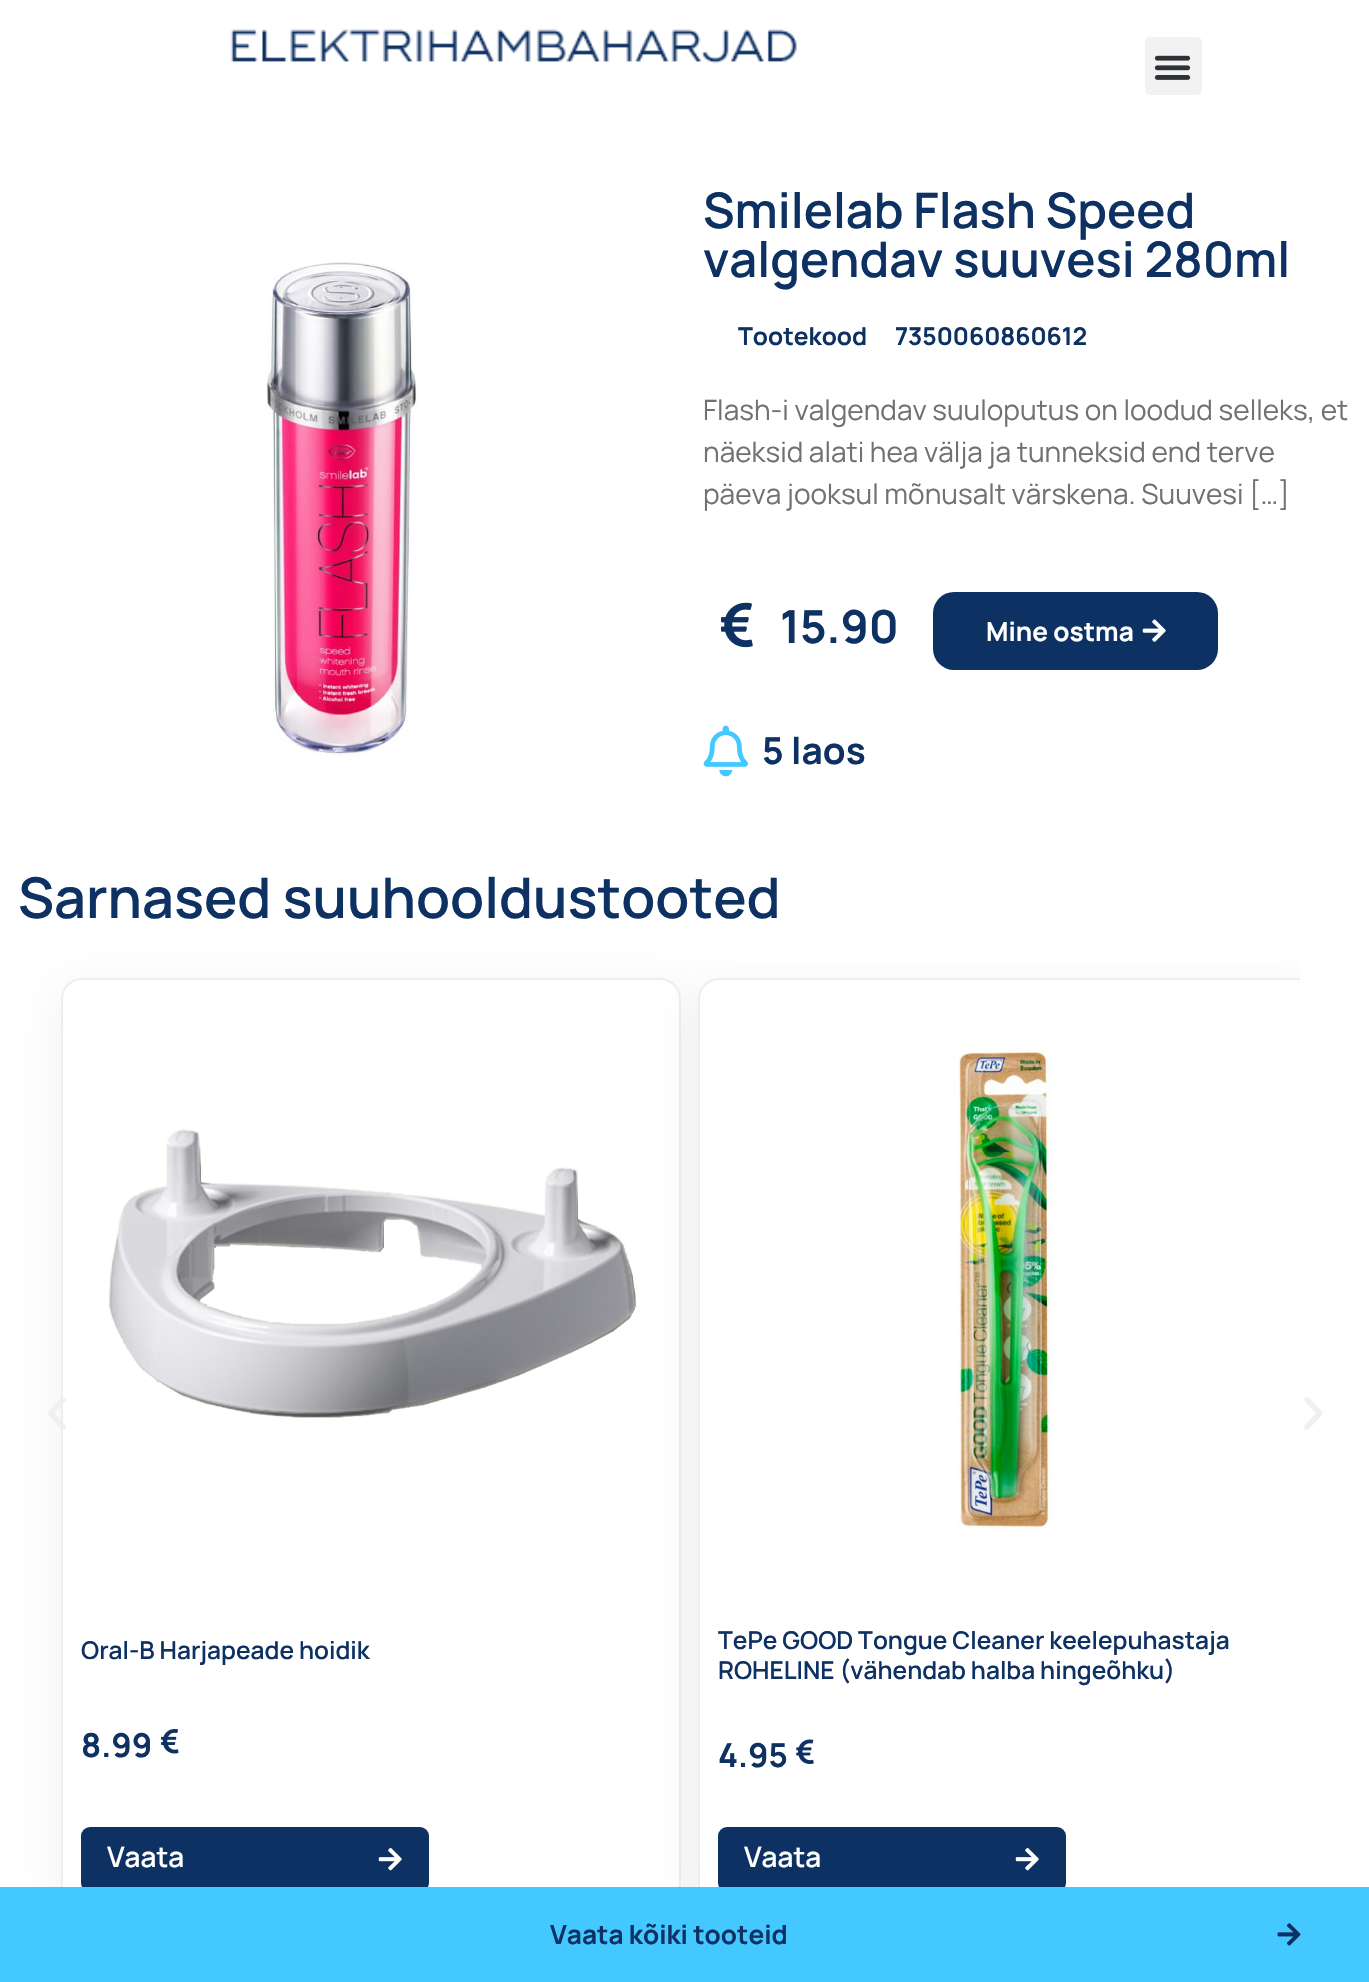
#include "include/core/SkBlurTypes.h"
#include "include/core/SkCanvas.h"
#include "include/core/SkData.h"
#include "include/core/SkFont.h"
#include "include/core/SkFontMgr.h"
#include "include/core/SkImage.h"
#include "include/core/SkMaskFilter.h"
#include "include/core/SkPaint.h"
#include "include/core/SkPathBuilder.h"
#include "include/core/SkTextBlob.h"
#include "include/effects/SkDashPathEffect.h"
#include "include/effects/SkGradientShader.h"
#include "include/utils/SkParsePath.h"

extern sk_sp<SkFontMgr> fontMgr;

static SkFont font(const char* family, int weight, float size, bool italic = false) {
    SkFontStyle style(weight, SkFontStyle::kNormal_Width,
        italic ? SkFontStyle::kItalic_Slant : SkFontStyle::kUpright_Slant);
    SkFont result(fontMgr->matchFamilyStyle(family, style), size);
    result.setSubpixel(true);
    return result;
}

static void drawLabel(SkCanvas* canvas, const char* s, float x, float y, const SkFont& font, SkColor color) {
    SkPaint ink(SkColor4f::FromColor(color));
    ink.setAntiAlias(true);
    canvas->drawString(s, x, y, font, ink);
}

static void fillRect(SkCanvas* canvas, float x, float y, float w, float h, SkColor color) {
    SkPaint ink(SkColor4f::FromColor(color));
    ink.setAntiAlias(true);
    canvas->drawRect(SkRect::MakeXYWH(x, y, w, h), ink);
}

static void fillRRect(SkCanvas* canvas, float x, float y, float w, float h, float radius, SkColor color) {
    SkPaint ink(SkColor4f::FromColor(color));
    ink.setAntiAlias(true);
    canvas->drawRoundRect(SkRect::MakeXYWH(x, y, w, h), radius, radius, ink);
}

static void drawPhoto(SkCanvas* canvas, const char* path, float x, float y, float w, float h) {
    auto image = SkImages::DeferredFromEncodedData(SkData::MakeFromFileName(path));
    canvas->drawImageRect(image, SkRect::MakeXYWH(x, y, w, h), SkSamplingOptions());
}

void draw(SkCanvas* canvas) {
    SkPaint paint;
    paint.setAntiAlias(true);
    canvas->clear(0xFFFFFFFF);
    drawPhoto(canvas, "assets/img1.png", 266, 262, 152, 494);
    SkFont font1 = font("Manrope", 600, 49);
    drawLabel(canvas, "Smilelab Flash Speed", 703, 228, font1, 0xFF0E3163);
    drawLabel(canvas, "valgendav suuvesi 280ml", 703, 277, font1, 0xFF0E3163);
    SkFont font2 = font("Manrope", 700, 24.5f);
    drawLabel(canvas, "Tootekood", 738, 345, font2, 0xFF0E3163);
    drawLabel(canvas, "7350060860612", 895, 345, font2, 0xFF0E3163);
    SkFont font3 = font("Manrope", 400, 28);
    drawLabel(canvas, "Flash-i valgendav suuloputus on loodud selleks, et", 703, 420, font3, 0xFF717171);
    drawLabel(canvas, "näeksid alati hea välja ja tunneksid end terve", 703, 462, font3, 0xFF717171);
    drawLabel(canvas, "päeva jooksul mõnusalt värskena. Suuvesi […]", 703, 504, font3, 0xFF717171);
    drawPhoto(canvas, "assets/img2.png", 721, 602, 32, 46);
    SkFont font4 = font("Manrope", 700, 45.5f);
    drawLabel(canvas, "15.90", 780, 643, font4, 0xFF0E3163);
    fillRRect(canvas, 933, 592, 285, 78, 21, 0xFF0E3163);
    SkFont font5 = font("Manrope", 700, 26.25f);
    drawLabel(canvas, "Mine ostma", 986, 641, font5, 0xFFFFFFFF);
    drawPhoto(canvas, "assets/img3.png", 1142, 619, 24, 23);
    drawPhoto(canvas, "assets/img4.png", 703, 725, 45, 52);
    SkFont font6 = font("Manrope", 700, 37);
    drawLabel(canvas, "5 laos", 762, 764, font6, 0xFF0E3163);
    SkFont font7 = font("Manrope", 600, 56);
    drawLabel(canvas, "Sarnased suuhooldustooted", 18, 918, font7, 0xFF0E3163);
    paint.setColor(0x0D000000);
    paint.setMaskFilter(SkMaskFilter::MakeBlur(kNormal_SkBlurStyle, 22));
    canvas->drawRoundRect(SkRect::MakeXYWH(61, 987, 620, 933), 21, 21, paint);
    paint.setMaskFilter(nullptr);
    paint.setColor(0xFFFFFFFF);
    canvas->drawRoundRect(SkRect::MakeXYWH(62, 979, 618, 931), 20, 20, paint);
    paint.setStroke(true);
    paint.setStrokeWidth(2);
    paint.setColor(0xFFEEEEEE);
    canvas->drawRoundRect(SkRect::MakeXYWH(62, 979, 618, 931), 20, 20, paint);
    drawPhoto(canvas, "assets/img5.png", 48, 1397, 18, 33);
    drawPhoto(canvas, "assets/img7.png", 108, 1128, 529, 290);
    canvas->save();
    canvas->clipRect(SkRect::MakeXYWH(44, 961, 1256, 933));
    paint.setStroke(false);
    paint.setColor(0x0D000000);
    paint.setMaskFilter(SkMaskFilter::MakeBlur(kNormal_SkBlurStyle, 22));
    canvas->drawRoundRect(SkRect::MakeXYWH(698, 987, 620, 933), 21, 21, paint);
    paint.setMaskFilter(nullptr);
    canvas->restore();
    canvas->save();
    canvas->clipRect(SkRect::MakeXYWH(44, 961, 1256, 933));
    paint.setColor(0xFFFFFFFF);
    canvas->drawRoundRect(SkRect::MakeXYWH(699, 979, 618, 931), 20, 20, paint);
    paint.setStroke(true);
    paint.setColor(0xFFEEEEEE);
    canvas->drawRoundRect(SkRect::MakeXYWH(699, 979, 618, 931), 20, 20, paint);
    canvas->restore();
    drawPhoto(canvas, "assets/img6.png", 1304, 1397, 19, 33);
    SkFont font8 = font("Manrope", 600, 24.5f);
    drawLabel(canvas, "Oral-B Harjapeade hoidik", 81, 1659, font8, 0xFF0E3163);
    SkFont font9 = font("Manrope", 700, 33);
    drawLabel(canvas, "8.99", 81, 1757, font9, 0xFF0E3163);
    drawPhoto(canvas, "assets/img8.png", 161, 1729, 18, 25);
    fillRRect(canvas, 81, 1827, 348, 65, 9, 0xFF0E3163);
    SkFont font10 = font("Manrope", 600, 28);
    drawLabel(canvas, "Vaata", 107, 1867, font10, 0xFFFFFFFF);
    drawPhoto(canvas, "assets/img9.png", 378, 1848, 24, 23);
    drawPhoto(canvas, "assets/img10.png", 957, 1050, 96, 481);
    drawLabel(canvas, "TePe GOOD Tongue Cleaner keelepuhastaja", 718, 1649, font8, 0xFF0E3163);
    drawLabel(canvas, "ROHELINE (vähendab halba hingeõhku)", 718, 1679, font8, 0xFF0E3163);
    drawLabel(canvas, "4.95", 718, 1767, font9, 0xFF0E3163);
    drawPhoto(canvas, "assets/img11.png", 796, 1739, 18, 25);
    fillRRect(canvas, 718, 1827, 348, 65, 9, 0xFF0E3163);
    drawLabel(canvas, "Vaata", 744, 1867, font10, 0xFFFFFFFF);
    drawPhoto(canvas, "assets/img9.png", 1015, 1848, 24, 23);
    drawPhoto(canvas, "assets/img12.png", 230, 29, 567, 35);
    fillRRect(canvas, 1145, 37, 57, 58, 5, 0xFFF2F2F2);
    drawPhoto(canvas, "assets/img13.png", 1154, 55, 37, 25);
    fillRect(canvas, 0, 1887, 1369, 95, 0xFF43C9FF);
    drawLabel(canvas, "Vaata kõiki tooteid", 550, 1944, font5, 0xFF0E3163);
    drawPhoto(canvas, "assets/img14.png", 1277, 1923, 24, 23);
}
